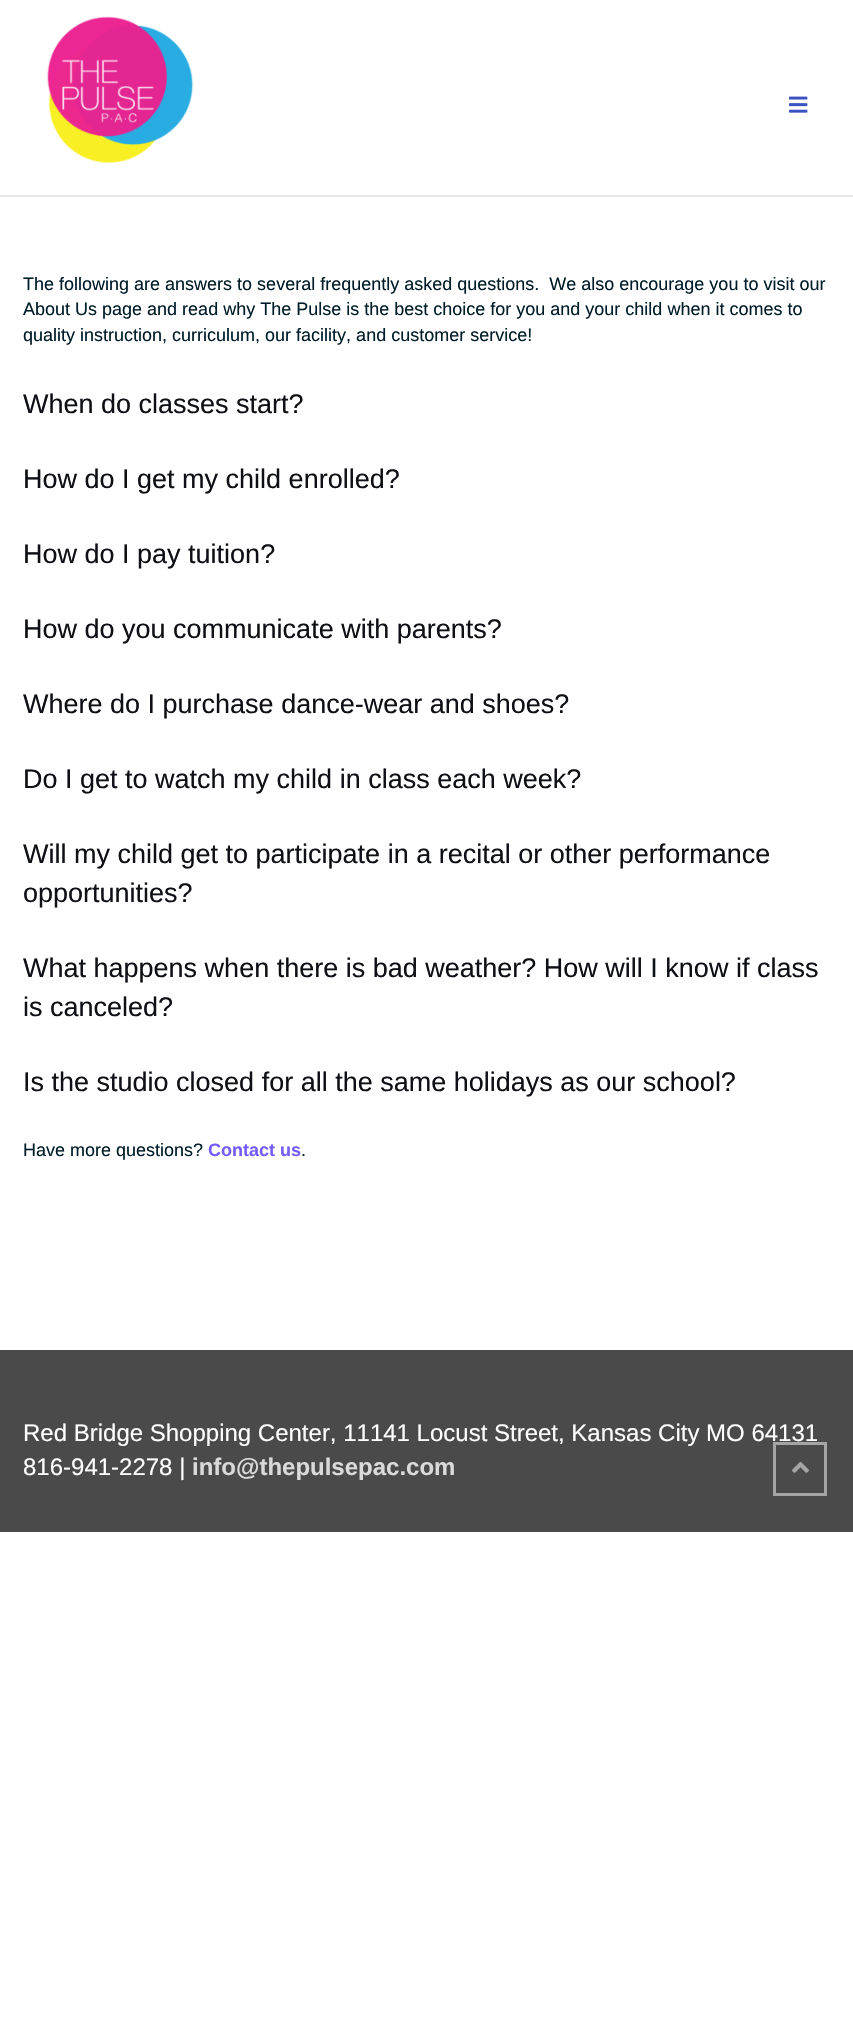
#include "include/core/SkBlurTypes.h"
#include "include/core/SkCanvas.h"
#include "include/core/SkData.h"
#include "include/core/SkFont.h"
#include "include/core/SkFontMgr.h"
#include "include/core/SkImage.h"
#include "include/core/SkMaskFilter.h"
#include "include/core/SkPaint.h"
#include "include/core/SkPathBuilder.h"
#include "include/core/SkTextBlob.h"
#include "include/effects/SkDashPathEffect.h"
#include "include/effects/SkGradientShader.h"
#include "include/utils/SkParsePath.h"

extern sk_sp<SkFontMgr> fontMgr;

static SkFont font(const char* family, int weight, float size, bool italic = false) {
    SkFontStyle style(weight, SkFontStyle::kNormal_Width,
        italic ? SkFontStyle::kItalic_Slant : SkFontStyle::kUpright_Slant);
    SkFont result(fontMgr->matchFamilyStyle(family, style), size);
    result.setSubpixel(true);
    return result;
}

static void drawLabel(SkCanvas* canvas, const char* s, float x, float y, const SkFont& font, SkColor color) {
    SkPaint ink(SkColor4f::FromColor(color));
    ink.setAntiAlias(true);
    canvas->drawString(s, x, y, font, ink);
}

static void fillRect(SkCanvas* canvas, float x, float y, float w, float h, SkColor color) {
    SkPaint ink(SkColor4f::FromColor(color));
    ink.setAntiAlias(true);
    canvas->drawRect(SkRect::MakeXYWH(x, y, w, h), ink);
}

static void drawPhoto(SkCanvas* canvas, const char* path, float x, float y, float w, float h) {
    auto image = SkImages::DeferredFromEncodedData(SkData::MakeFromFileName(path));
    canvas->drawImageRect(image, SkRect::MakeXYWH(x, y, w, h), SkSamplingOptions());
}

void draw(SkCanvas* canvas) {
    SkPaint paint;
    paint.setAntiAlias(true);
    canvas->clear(0xFFFFFFFF);
    fillRect(canvas, 0, 195, 853, 2, 0xFFE6E6E6);
    drawPhoto(canvas, "assets/img1.png", 47, 16, 147, 148);
    drawPhoto(canvas, "assets/img2.png", 789, 96, 19, 17);
    SkFont font1 = font("Liberation Sans", 400, 18);
    drawLabel(canvas, "The following are answers to several frequently asked questions.  We also encourage you to visit our", 23, 290, font1, 0xFF001C28);
    drawLabel(canvas, "About Us page and read why The Pulse is the best choice for you and your child when it comes to", 23, 315, font1, 0xFF001C28);
    drawLabel(canvas, "quality instruction, curriculum, our facility, and customer service!", 23, 341, font1, 0xFF001C28);
    SkFont font2 = font("Liberation Sans", 400, 27);
    drawLabel(canvas, "When do classes start?", 23, 413, font2, 0xFF0E1015);
    drawLabel(canvas, "How do I get my child enrolled?", 23, 488, font2, 0xFF0E1015);
    drawLabel(canvas, "How do I pay tuition?", 23, 563, font2, 0xFF0E1015);
    drawLabel(canvas, "How do you communicate with parents?", 23, 638, font2, 0xFF0E1015);
    drawLabel(canvas, "Where do I purchase dance-wear and shoes?", 23, 713, font2, 0xFF0E1015);
    drawLabel(canvas, "Do I get to watch my child in class each week?", 23, 788, font2, 0xFF0E1015);
    drawLabel(canvas, "Will my child get to participate in a recital or other performance", 23, 863, font2, 0xFF0E1015);
    drawLabel(canvas, "opportunities?", 23, 902, font2, 0xFF0E1015);
    drawLabel(canvas, "What happens when there is bad weather? How will I know if class", 23, 977, font2, 0xFF0E1015);
    drawLabel(canvas, "is canceled?", 23, 1016, font2, 0xFF0E1015);
    drawLabel(canvas, "Is the studio closed for all the same holidays as our school?", 23, 1091, font2, 0xFF0E1015);
    drawLabel(canvas, "Have more questions?", 23, 1156, font1, 0xFF001C28);
    SkFont font3 = font("Liberation Sans", 700, 18);
    drawLabel(canvas, "Contact us", 208, 1156, font3, 0xFF745CF9);
    drawLabel(canvas, ".", 301, 1156, font1, 0xFF001C28);
    fillRect(canvas, 0, 1350, 853, 182, 0xFF4B4A4A);
    SkFont font4 = font("Liberation Sans", 400, 24);
    drawLabel(canvas, "Red Bridge Shopping Center, 11141 Locust Street, Kansas City MO 64131", 23, 1441, font4, 0xFFFEFEFE);
    drawLabel(canvas, "816-941-2278 |", 23, 1475, font4, 0xFFFEFEFE);
    SkFont font5 = font("Liberation Sans", 700, 24);
    drawLabel(canvas, "info@thepulsepac.com", 192, 1475, font5, 0xFFDADADA);
    paint.setStroke(true);
    paint.setStrokeWidth(3);
    paint.setColor(0xFFA5A5A5);
    canvas->drawRect(SkRect::MakeXYWH(774.5f, 1443.5f, 51, 51), paint);
    drawPhoto(canvas, "assets/img3.png", 792, 1462, 17, 11);
}
